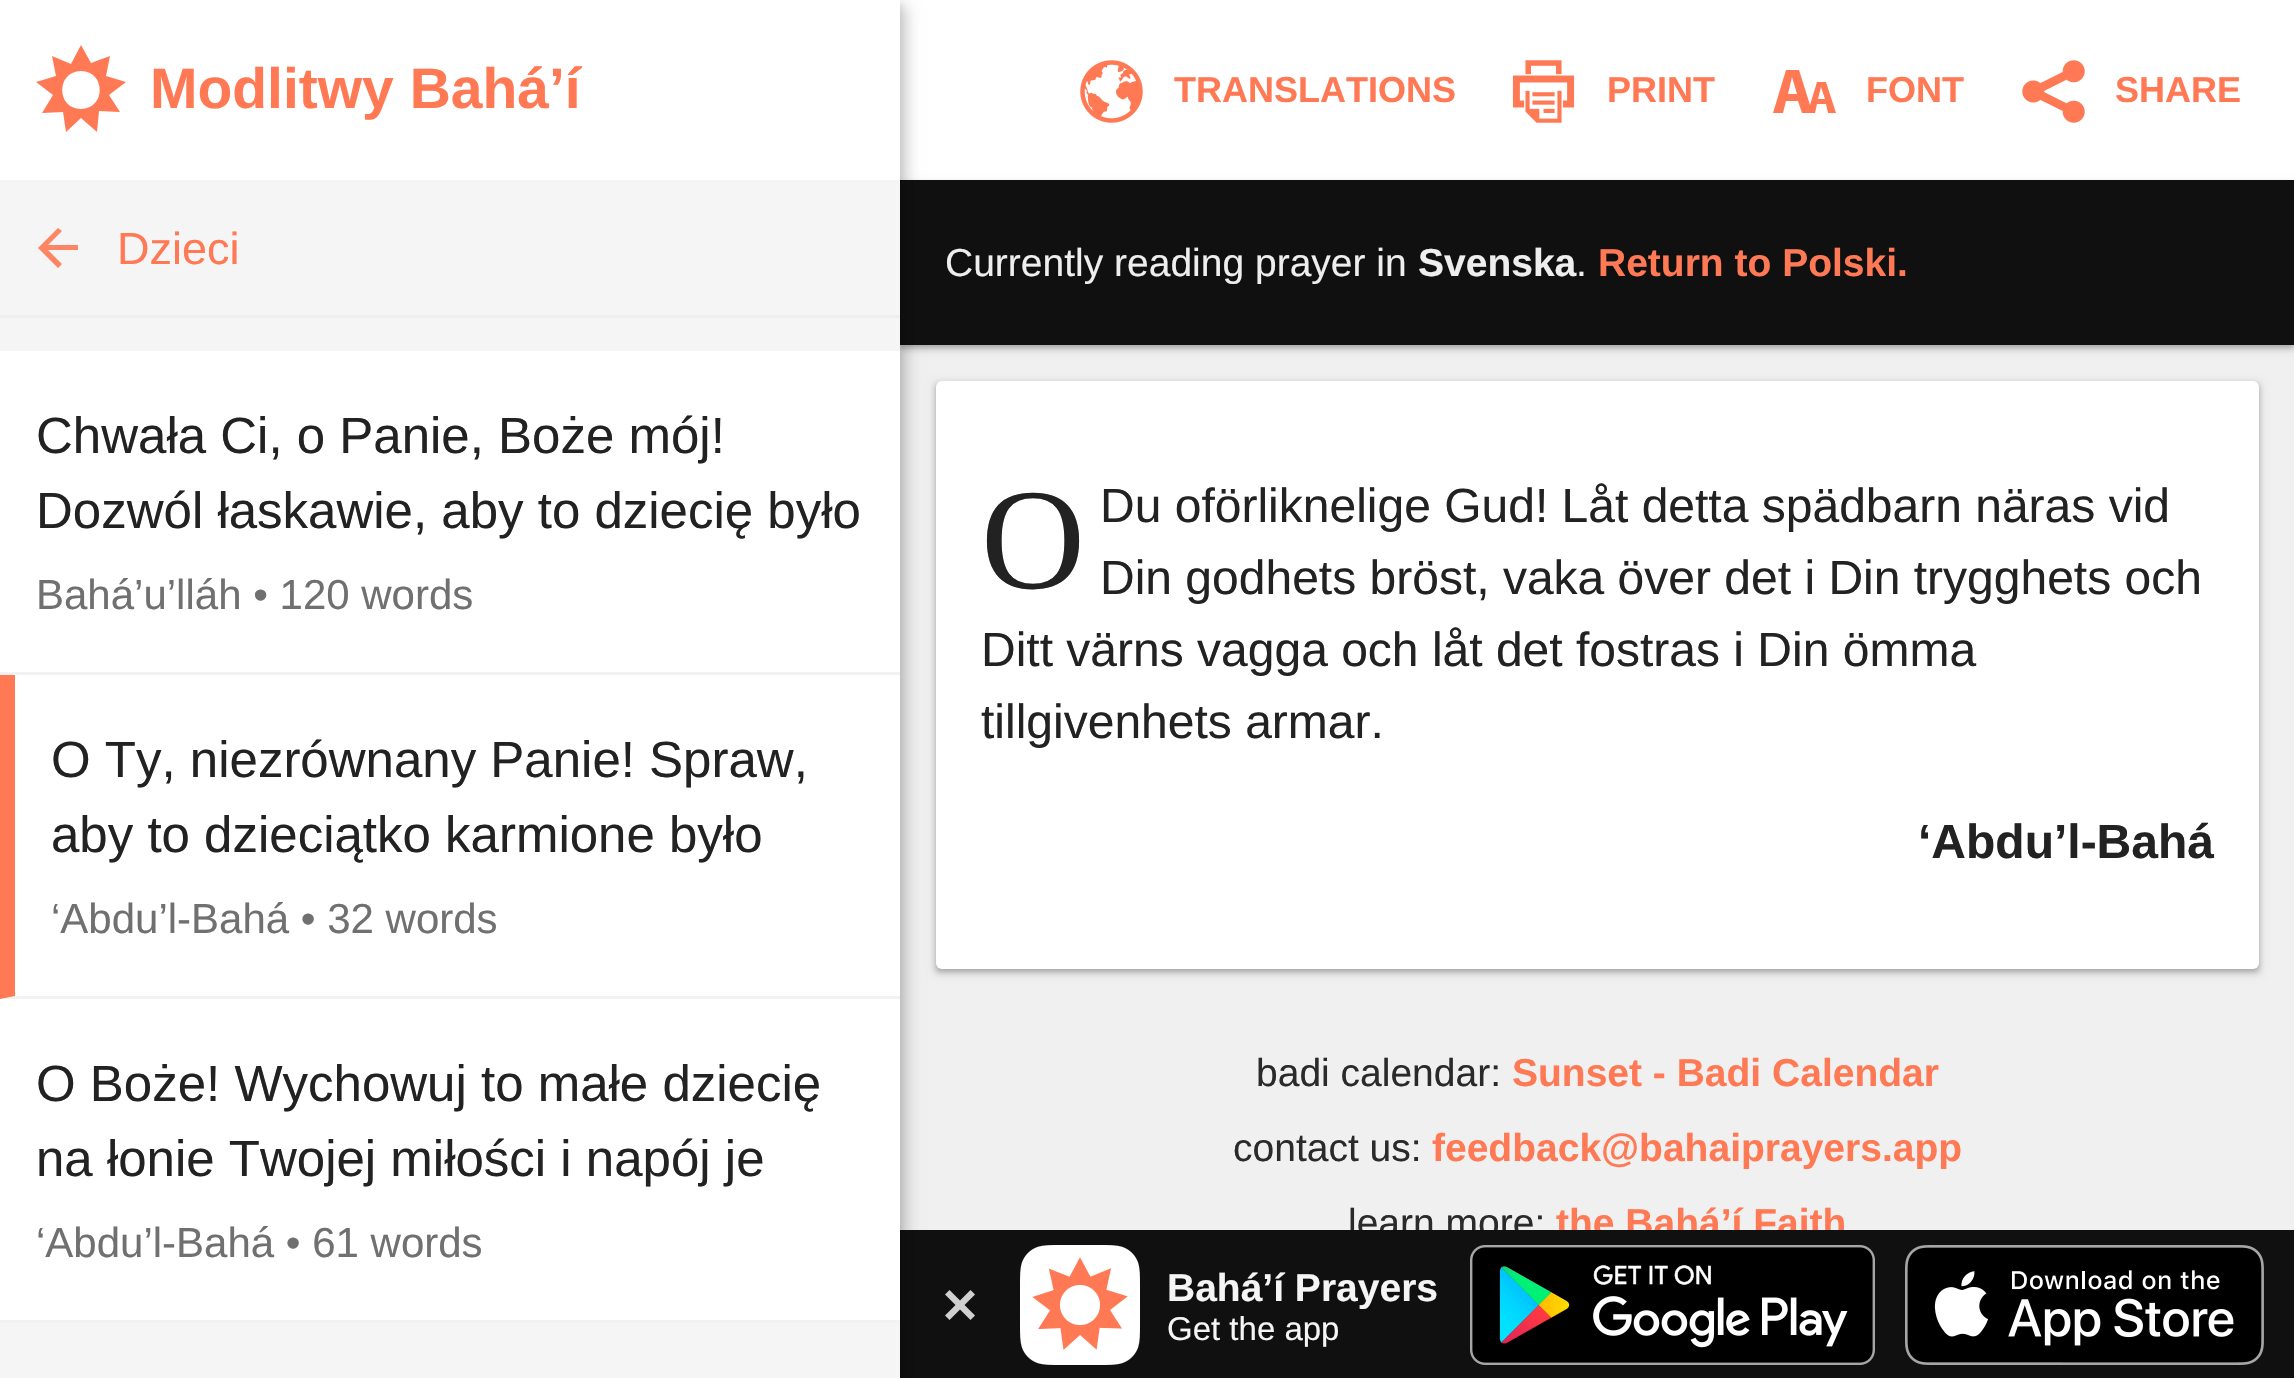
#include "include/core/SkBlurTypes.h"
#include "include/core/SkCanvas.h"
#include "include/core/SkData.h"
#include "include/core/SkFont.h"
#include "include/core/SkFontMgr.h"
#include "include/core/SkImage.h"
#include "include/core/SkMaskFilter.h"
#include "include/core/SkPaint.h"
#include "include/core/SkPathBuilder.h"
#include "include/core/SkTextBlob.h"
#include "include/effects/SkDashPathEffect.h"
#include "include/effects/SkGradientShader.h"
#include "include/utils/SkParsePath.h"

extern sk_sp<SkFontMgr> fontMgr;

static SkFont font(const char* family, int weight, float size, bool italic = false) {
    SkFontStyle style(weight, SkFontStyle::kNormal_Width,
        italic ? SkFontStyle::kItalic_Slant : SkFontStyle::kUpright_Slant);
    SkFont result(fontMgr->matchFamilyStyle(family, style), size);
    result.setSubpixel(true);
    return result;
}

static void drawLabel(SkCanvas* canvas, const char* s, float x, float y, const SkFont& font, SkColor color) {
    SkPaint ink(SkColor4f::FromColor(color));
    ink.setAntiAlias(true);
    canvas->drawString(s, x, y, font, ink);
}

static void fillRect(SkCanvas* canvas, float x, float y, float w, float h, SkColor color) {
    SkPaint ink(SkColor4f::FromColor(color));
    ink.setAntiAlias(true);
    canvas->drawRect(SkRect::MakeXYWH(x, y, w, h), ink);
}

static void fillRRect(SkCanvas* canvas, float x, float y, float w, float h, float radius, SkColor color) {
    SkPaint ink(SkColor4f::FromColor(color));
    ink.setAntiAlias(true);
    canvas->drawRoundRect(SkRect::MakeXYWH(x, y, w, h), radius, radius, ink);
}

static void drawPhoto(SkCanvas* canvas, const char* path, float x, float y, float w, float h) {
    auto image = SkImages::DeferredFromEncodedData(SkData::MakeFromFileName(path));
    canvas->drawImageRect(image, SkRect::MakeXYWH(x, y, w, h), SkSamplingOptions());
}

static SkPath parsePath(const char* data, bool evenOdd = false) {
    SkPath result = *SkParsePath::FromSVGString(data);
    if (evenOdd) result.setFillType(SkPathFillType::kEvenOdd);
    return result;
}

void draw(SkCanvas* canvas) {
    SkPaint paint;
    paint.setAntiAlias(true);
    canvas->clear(0xFFF0F0F0);
    fillRect(canvas, 900, 0, 1394, 180, 0xFFFFFFFF);
    paint.setColor(0x3D000000);
    paint.setMaskFilter(SkMaskFilter::MakeBlur(kNormal_SkBlurStyle, 3));
    canvas->drawRect(SkRect::MakeXYWH(900, 183, 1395, 165), paint);
    paint.setMaskFilter(nullptr);
    canvas->save();
    canvas->clipRect(SkRect::MakeXYWH(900, 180, 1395, 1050));
    paint.setColor(0x1F000000);
    paint.setMaskFilter(SkMaskFilter::MakeBlur(kNormal_SkBlurStyle, 4.5f));
    canvas->drawRect(SkRect::MakeXYWH(900, 183, 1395, 165), paint);
    paint.setMaskFilter(nullptr);
    canvas->restore();
    fillRect(canvas, 900, 180, 1394, 165, 0xFF101010);
    fillRect(canvas, 900, 1230, 1394, 148, 0xFF101010);
    paint.setColor(0x33000000);
    paint.setMaskFilter(SkMaskFilter::MakeBlur(kNormal_SkBlurStyle, 7.5f));
    canvas->drawRect(SkRect::MakeXYWH(6, 6, 900, 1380), paint);
    paint.setMaskFilter(nullptr);
    paint.setColor(0x0F000000);
    paint.setMaskFilter(SkMaskFilter::MakeBlur(kNormal_SkBlurStyle, 3));
    canvas->drawRect(SkRect::MakeXYWH(3, 3, 900, 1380), paint);
    paint.setMaskFilter(nullptr);
    fillRect(canvas, 0, 180, 900, 1198, 0xFFF5F5F5);
    fillRect(canvas, 0, 0, 900, 180, 0xFFFFFFFF);
    paint.setColor(0xFFFF7954);
    canvas->drawPath(parsePath("M126 82L106 76L110 56L91 63L81 45L71 64L52 56L56 76L36 82L53 95L42 113L63 112L66 132L81 118L97 132L99 111L120 112L109 95ZM81 71C106 71 106 109 81 109C56 109 56 71 81 71Z"), paint);
    SkFont font1 = font("Liberation Sans", 700, 57);
    drawLabel(canvas, "Modlitwy Bahá’í", 150, 108, font1, 0xFFFF7954);
    fillRect(canvas, 0, 315, 900, 3, 0xFFEEEEEE);
    paint.setColor(0xFFFE8564);
    canvas->drawPath(parsePath("M58 228L62 231L48 245H78V250H48L62 264L58 268L38 248Z"), paint);
    SkFont font2 = font("Liberation Sans", 400, 45);
    drawLabel(canvas, "Dzieci", 117, 264, font2, 0xFFFF7954);
    fillRect(canvas, 0, 351, 900, 321, 0xFFFFFFFF);
    fillRect(canvas, 0, 672, 900, 3, 0xFFF2F2F2);
    SkFont font3 = font("Liberation Sans", 400, 51);
    drawLabel(canvas, "Chwała Ci, o Panie, Boże mój!", 36, 453, font3, 0xFF222222);
    drawLabel(canvas, "Dozwól łaskawie, aby to dziecię było", 36, 528, font3, 0xFF222222);
    SkFont font4 = font("Liberation Sans", 400, 42);
    drawLabel(canvas, "Bahá’u’lláh • 120 words", 36, 609, font4, 0xFF707070);
    fillRect(canvas, 0, 675, 900, 645, 0xFFFFFFFF);
    paint.setColor(0xFFF2F2F2);
    canvas->drawPath(parsePath("M900 999H0L15 996H900Z"), paint);
    paint.setColor(0xFFFF7954);
    canvas->drawPath(parsePath("M0 999V675H15V996Z"), paint);
    drawLabel(canvas, "O Ty, niezrównany Panie! Spraw,", 51, 777, font3, 0xFF222222);
    drawLabel(canvas, "aby to dzieciątko karmione było", 51, 852, font3, 0xFF222222);
    drawLabel(canvas, "‘Abdu’l-Bahá • 32 words", 51, 933, font4, 0xFF707070);
    fillRect(canvas, 0, 1320, 900, 3, 0xFFF2F2F2);
    drawLabel(canvas, "O Boże! Wychowuj to małe dziecię", 36, 1101, font3, 0xFF222222);
    drawLabel(canvas, "na łonie Twojej miłości i napój je", 36, 1176, font3, 0xFF222222);
    drawLabel(canvas, "‘Abdu’l-Bahá • 61 words", 36, 1257, font4, 0xFF707070);
    drawPhoto(canvas, "assets/img1.png", 1080, 60, 63, 63);
    SkFont font5 = font("Liberation Sans", 700, 36);
    drawLabel(canvas, "TRANSLATIONS", 1174, 102, font5, 0xFFFF7954);
    drawPhoto(canvas, "assets/img2.png", 1512, 60, 63, 63);
    drawLabel(canvas, "PRINT", 1607, 102, font5, 0xFFFF7954);
    canvas->drawPath(parsePath("M1798 101H1786L1783 113H1773L1786 70H1799L1810 105L1817 82H1826L1836 113H1828L1826 104H1817L1815 113H1802ZM1788 94H1797L1792 77ZM1818 99H1825L1821 87Z"), paint);
    drawLabel(canvas, "FONT", 1866, 102, font5, 0xFFFF7954);
    drawPhoto(canvas, "assets/img3.png", 2022, 60, 63, 63);
    drawLabel(canvas, "SHARE", 2115, 102, font5, 0xFFFF7954);
    SkFont font6 = font("Liberation Sans", 400, 39);
    drawLabel(canvas, "Currently reading prayer in", 945, 276, font6, 0xFFEEEEEE);
    SkFont font7 = font("Liberation Sans", 700, 39);
    drawLabel(canvas, "Svenska", 1418, 276, font7, 0xFFEEEEEE);
    drawLabel(canvas, ".", 1576, 276, font6, 0xFFEEEEEE);
    drawLabel(canvas, "Return to Polski.", 1598, 276, font7, 0xFFFF7954);
    paint.setColor(0x3D000000);
    paint.setMaskFilter(SkMaskFilter::MakeBlur(kNormal_SkBlurStyle, 3));
    canvas->drawRect(SkRect::MakeXYWH(936, 384, 1323, 588), paint);
    paint.setMaskFilter(nullptr);
    paint.setColor(0x1F000000);
    paint.setMaskFilter(SkMaskFilter::MakeBlur(kNormal_SkBlurStyle, 4.5f));
    canvas->drawRect(SkRect::MakeXYWH(936, 384, 1323, 588), paint);
    paint.setMaskFilter(nullptr);
    fillRRect(canvas, 936, 381, 1323, 588, 6, 0xFFFFFFFF);
    SkFont font8 = font("Liberation Serif", 400, 144);
    drawLabel(canvas, "O", 981, 588, font8, 0xFF222222);
    SkFont font9 = font("Liberation Sans", 400, 48);
    drawLabel(canvas, "Du oförliknelige Gud! Låt detta spädbarn näras vid", 1100, 522, font9, 0xFF222222);
    drawLabel(canvas, "Din godhets bröst, vaka över det i Din trygghets och", 1100, 594, font9, 0xFF222222);
    drawLabel(canvas, "Ditt värns vagga och låt det fostras i Din ömma", 981, 666, font9, 0xFF222222);
    drawLabel(canvas, "tillgivenhets armar.", 981, 738, font9, 0xFF222222);
    SkFont font10 = font("Liberation Sans", 700, 48);
    drawLabel(canvas, "‘Abdu’l-Bahá", 1918, 858, font10, 0xFF222222);
    drawLabel(canvas, "badi calendar:", 1256, 1086, font6, 0xFF2A2A2A);
    drawLabel(canvas, "Sunset - Badi Calendar", 1512, 1086, font7, 0xFFFF7954);
    drawLabel(canvas, "contact us:", 1233, 1161, font6, 0xFF2A2A2A);
    drawLabel(canvas, "feedback@bahaiprayers.app", 1432, 1161, font7, 0xFFFF7954);
    canvas->save();
    canvas->clipRect(SkRect::MakeXYWH(900, 180, 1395, 1050));
    drawLabel(canvas, "learn more:", 1348, 1236, font6, 0xFF2A2A2A);
    drawLabel(canvas, "the Bahá’í Faith", 1556, 1236, font7, 0xFFFF7954);
    canvas->restore();
    drawPhoto(canvas, "assets/img4.png", 945, 1290, 30, 30);
    drawPhoto(canvas, "assets/img5.png", 1020, 1245, 120, 120);
    drawLabel(canvas, "Bahá’í Prayers", 1167, 1301, font7, 0xFFF5F5F5);
    SkFont font11 = font("Liberation Sans", 400, 33);
    drawLabel(canvas, "Get the app", 1167, 1340, font11, 0xFFF5F5F5);
    drawPhoto(canvas, "assets/img6.png", 1470, 1245, 405, 120);
    drawPhoto(canvas, "assets/img7.png", 1905, 1245, 359, 120);
}
